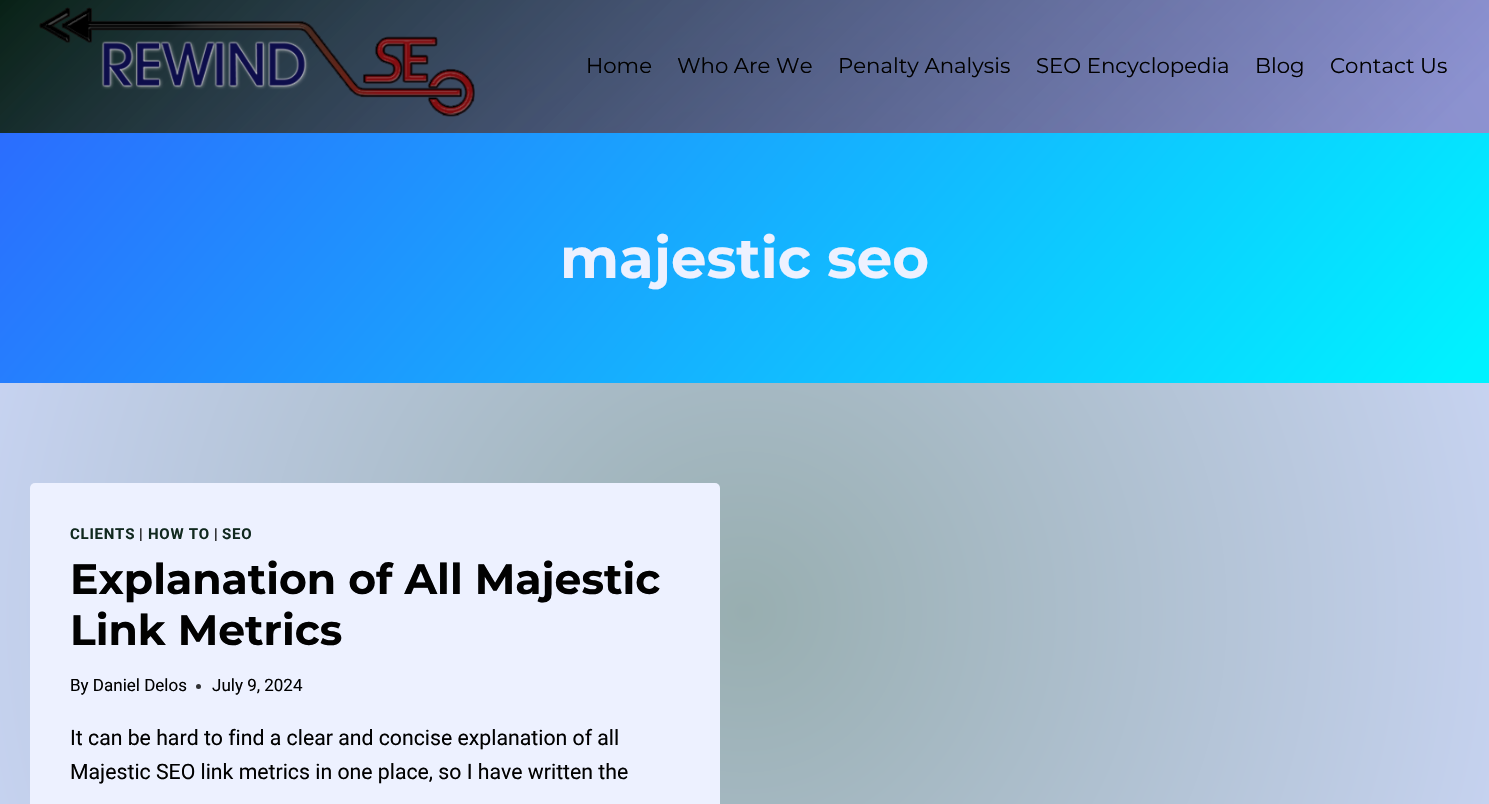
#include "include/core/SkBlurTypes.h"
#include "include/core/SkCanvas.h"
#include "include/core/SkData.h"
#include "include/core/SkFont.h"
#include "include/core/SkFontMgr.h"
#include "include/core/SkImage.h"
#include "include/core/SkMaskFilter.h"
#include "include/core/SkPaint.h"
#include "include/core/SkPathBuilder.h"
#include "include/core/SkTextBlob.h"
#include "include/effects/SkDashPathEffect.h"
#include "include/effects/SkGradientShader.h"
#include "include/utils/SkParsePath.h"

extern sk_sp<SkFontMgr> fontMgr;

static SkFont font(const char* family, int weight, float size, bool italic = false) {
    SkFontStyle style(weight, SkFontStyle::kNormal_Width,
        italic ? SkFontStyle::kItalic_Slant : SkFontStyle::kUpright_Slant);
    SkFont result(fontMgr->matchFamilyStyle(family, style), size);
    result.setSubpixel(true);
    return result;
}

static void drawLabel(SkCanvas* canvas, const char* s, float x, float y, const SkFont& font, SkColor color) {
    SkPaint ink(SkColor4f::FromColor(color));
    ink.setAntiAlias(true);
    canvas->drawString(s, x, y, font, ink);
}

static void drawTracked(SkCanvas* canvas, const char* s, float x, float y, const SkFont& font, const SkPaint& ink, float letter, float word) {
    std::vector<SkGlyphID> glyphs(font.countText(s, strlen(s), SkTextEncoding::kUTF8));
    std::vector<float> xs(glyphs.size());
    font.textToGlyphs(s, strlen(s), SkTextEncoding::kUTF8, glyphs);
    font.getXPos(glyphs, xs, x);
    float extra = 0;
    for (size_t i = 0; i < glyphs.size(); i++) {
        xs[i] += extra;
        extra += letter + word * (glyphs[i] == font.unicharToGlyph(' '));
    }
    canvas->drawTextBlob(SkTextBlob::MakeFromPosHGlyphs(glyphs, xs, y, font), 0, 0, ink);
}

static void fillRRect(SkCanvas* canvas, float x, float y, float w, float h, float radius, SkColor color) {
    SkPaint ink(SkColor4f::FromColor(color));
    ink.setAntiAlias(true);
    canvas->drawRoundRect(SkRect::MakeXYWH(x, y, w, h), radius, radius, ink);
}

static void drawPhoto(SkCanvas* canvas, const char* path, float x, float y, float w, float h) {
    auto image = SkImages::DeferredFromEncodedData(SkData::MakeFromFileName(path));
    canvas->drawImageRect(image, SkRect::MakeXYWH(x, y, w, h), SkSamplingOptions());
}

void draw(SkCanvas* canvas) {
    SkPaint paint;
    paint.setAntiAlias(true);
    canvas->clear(0xFFFFFFFF);
    {
        const SkColor colors[] = {0xFF98AEB0, 0xFFD1DBFF};
        const float stops[] = {0, 1};
        paint.setShader(SkGradientShader::MakeRadial({745, 612}, 964, colors, stops, 2, SkTileMode::kClamp));
        paint.setAlpha(255);
    }
    canvas->drawRect(SkRect::MakeXYWH(0, 0, 1489, 804), paint);
    {
        const SkColor colors[] = {0xFF082116, 0x7D4A4AA6};
        const float stops[] = {0, 0.97f};
        const SkPoint ends[] = {{339, -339}, {1151, 472}};
        paint.setShader(SkGradientShader::MakeLinear(ends, colors, stops, 2, SkTileMode::kClamp));
        paint.setAlpha(255);
    }
    canvas->drawRect(SkRect::MakeXYWH(0, 0, 1489, 133), paint);
    drawPhoto(canvas, "assets/img1.png", 39, 7, 436, 110);
    SkFont font1 = font("Montserrat", 400, 21.25f);
    drawLabel(canvas, "Home", 586, 73, font1, 0xFF010101);
    drawLabel(canvas, "Who Are We", 677, 73, font1, 0xFF010101);
    drawLabel(canvas, "Penalty Analysis", 838, 73, font1, 0xFF010101);
    drawLabel(canvas, "SEO Encyclopedia", 1036, 73, font1, 0xFF010101);
    drawLabel(canvas, "Blog", 1255, 73, font1, 0xFF010101);
    drawLabel(canvas, "Contact Us", 1330, 73, font1, 0xFF010101);
    {
        const SkColor colors[] = {0xFF2B6DFE, 0xFF00F2FF};
        const float stops[] = {0, 0.98f};
        const SkPoint ends[] = {{246, -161}, {1244, 676}};
        paint.setShader(SkGradientShader::MakeLinear(ends, colors, stops, 2, SkTileMode::kClamp));
        paint.setAlpha(255);
    }
    canvas->drawRect(SkRect::MakeXYWH(0, 133, 1489, 250), paint);
    SkFont font2 = font("Montserrat", 700, 56.25f);
    drawLabel(canvas, "majestic seo", 560, 278, font2, 0xFFEDF1FF);
    fillRRect(canvas, 30, 483, 690, 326, 5, 0xFFEDF1FF);
    SkFont font3 = font("Roboto", 700, 15);
    paint.setShader(nullptr);
    paint.setColor(0xFF11291F);
    drawTracked(canvas, "CLIENTS", 70, 539, font3, paint, 0.75f, 0);
    SkFont font4 = font("Roboto", 400, 15);
    paint.setColor(0xFF010101);
    drawTracked(canvas, "|", 139, 539, font4, paint, 0.75f, 0);
    paint.setColor(0xFF11291F);
    drawTracked(canvas, "HOW TO", 148, 539, font3, paint, 0.75f, 0);
    paint.setColor(0xFF010101);
    drawTracked(canvas, "|", 214, 539, font4, paint, 0.75f, 0);
    paint.setColor(0xFF11291F);
    drawTracked(canvas, "SEO", 222, 539, font3, paint, 0.75f, 0);
    SkFont font5 = font("Montserrat", 700, 42.5f);
    drawLabel(canvas, "Explanation of All Majestic", 70, 594, font5, 0xFF010101);
    drawLabel(canvas, "Link Metrics", 70, 645, font5, 0xFF010101);
    SkFont font6 = font("Roboto", 400, 17);
    drawLabel(canvas, "By Daniel Delos", 70, 691, font6, 0xFF010101);
    paint.setColor(0xFF303134);
    canvas->drawCircle(198.5f, 686.5f, 2.5f, paint);
    drawLabel(canvas, "July 9, 2024", 212, 691, font6, 0xFF010101);
    SkFont font7 = font("Roboto", 400, 21.25f);
    drawLabel(canvas, "It can be hard to find a clear and concise explanation of all", 70, 745, font7, 0xFF010101);
    drawLabel(canvas, "Majestic SEO link metrics in one place, so I have written the", 70, 779, font7, 0xFF010101);
}
